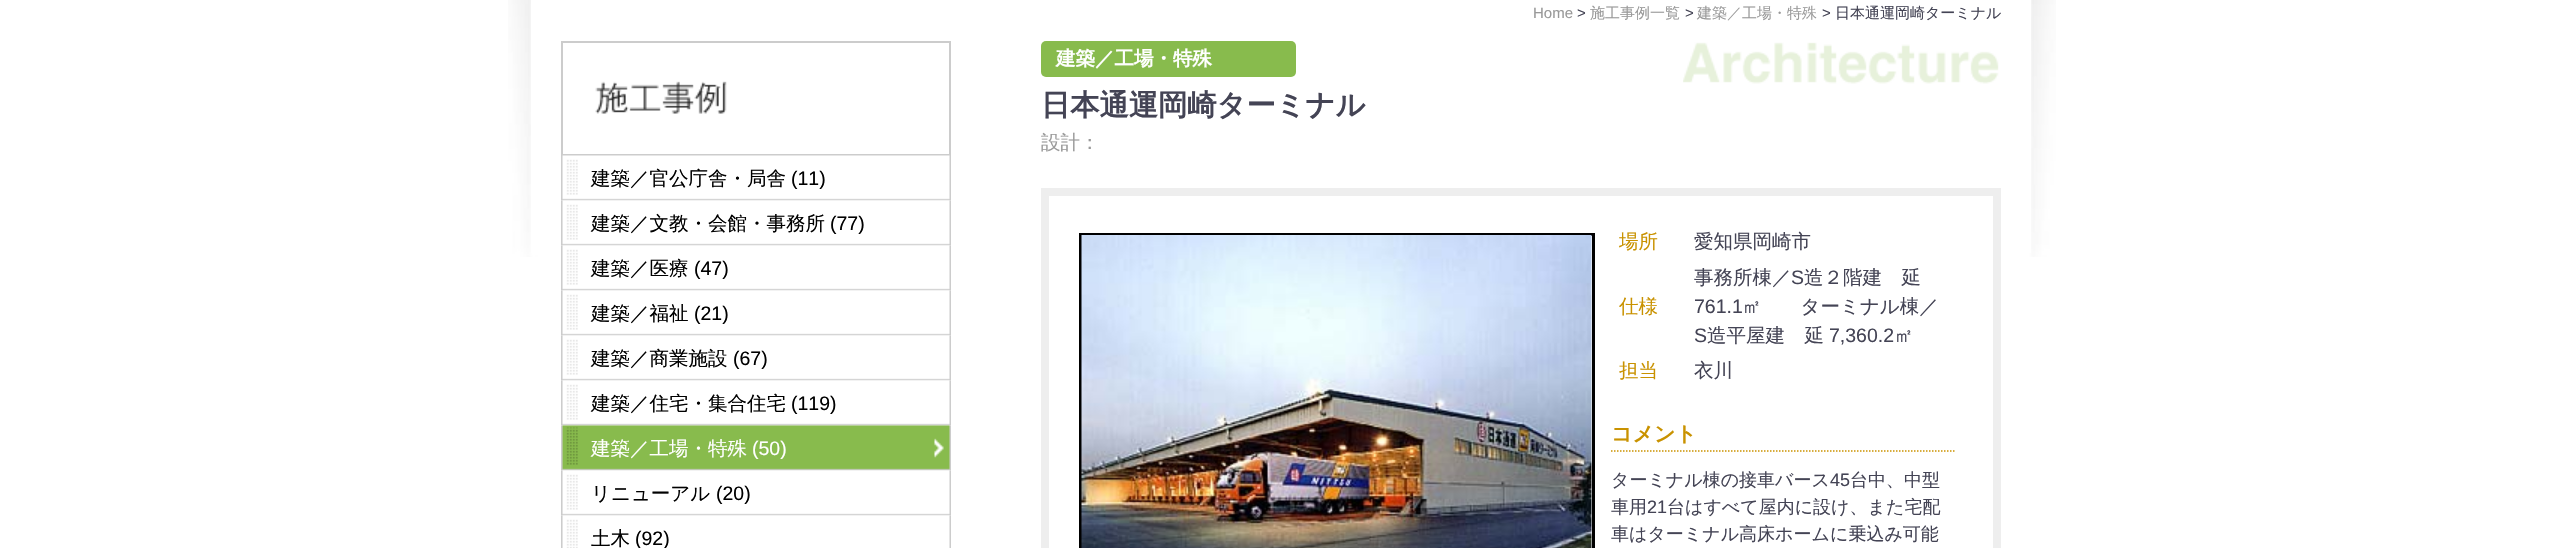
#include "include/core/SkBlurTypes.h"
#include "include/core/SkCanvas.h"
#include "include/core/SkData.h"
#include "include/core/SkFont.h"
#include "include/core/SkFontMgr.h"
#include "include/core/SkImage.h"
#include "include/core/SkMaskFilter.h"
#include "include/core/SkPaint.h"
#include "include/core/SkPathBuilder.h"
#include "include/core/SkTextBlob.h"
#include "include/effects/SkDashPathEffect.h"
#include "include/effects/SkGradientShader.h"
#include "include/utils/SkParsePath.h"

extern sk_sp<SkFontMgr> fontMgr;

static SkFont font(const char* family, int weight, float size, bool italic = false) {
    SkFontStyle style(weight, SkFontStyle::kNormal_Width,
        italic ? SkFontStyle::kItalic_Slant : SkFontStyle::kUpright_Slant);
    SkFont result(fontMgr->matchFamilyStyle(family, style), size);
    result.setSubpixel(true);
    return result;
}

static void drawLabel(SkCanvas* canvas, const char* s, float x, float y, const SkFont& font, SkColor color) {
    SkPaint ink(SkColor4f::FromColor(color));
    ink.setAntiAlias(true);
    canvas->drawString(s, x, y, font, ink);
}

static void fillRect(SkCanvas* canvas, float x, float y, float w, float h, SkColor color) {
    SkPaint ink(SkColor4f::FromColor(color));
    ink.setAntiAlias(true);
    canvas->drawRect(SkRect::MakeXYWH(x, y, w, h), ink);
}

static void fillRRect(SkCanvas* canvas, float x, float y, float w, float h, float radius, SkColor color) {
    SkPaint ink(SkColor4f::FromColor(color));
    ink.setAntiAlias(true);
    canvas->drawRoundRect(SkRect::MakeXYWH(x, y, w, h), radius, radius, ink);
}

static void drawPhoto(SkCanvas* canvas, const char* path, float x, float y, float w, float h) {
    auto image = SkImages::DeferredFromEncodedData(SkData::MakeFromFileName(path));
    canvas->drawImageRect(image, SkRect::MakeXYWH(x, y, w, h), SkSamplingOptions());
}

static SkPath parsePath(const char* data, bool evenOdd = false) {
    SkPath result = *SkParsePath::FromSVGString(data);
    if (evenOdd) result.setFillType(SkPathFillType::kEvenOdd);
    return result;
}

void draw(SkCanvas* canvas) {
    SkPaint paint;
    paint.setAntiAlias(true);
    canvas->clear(0xFFFFFFFF);
    drawPhoto(canvas, "assets/img1.png", 508, 0, 1548, 257);
    fillRect(canvas, 531, 0, 1500, 253, 0xFFFFFFFF);
    SkFont font1 = font("Liberation Sans", 400, 15);
    drawLabel(canvas, "Home", 1533, 18, font1, 0xFF999999);
    drawLabel(canvas, ">", 1577, 18, font1, 0xFF444455);
    SkFont font2 = font("WenQuanYi Zen Hei", 500, 15);
    drawLabel(canvas, "施工事例一覧", 1590, 18, font2, 0xFF999999);
    drawLabel(canvas, ">", 1685, 18, font1, 0xFF444455);
    drawLabel(canvas, "建築／工場・特殊", 1697, 18, font2, 0xFF999999);
    drawLabel(canvas, ">", 1822, 18, font1, 0xFF444455);
    drawLabel(canvas, "日本通運岡崎ターミナル", 1835, 18, font2, 0xFF444455);
    paint.setStroke(true);
    paint.setStrokeWidth(2);
    paint.setColor(0xFFCCCCCC);
    canvas->drawRect(SkRect::MakeXYWH(562, 42, 388, 113), paint);
    drawPhoto(canvas, "assets/img2.png", 595, 81, 132, 33);
    drawPhoto(canvas, "assets/img3.png", 561, 155, 390, 46);
    SkFont font3 = font("WenQuanYi Zen Hei", 500, 19.5f);
    drawLabel(canvas, "建築／官公庁舎・局舎", 591, 185, font3, 0xFF000000);
    SkFont font4 = font("Liberation Sans", 400, 19.5f);
    drawLabel(canvas, "(11)", 791, 185, font4, 0xFF000000);
    drawPhoto(canvas, "assets/img4.png", 561, 200, 390, 46);
    drawLabel(canvas, "建築／文教・会館・事務所", 591, 230, font3, 0xFF000000);
    drawLabel(canvas, "(77)", 830, 230, font4, 0xFF000000);
    drawPhoto(canvas, "assets/img4.png", 561, 245, 390, 46);
    drawLabel(canvas, "建築／医療", 591, 275, font3, 0xFF000000);
    drawLabel(canvas, "(47)", 694, 275, font4, 0xFF000000);
    drawPhoto(canvas, "assets/img4.png", 561, 290, 390, 46);
    drawLabel(canvas, "建築／福祉", 591, 320, font3, 0xFF000000);
    drawLabel(canvas, "(21)", 694, 320, font4, 0xFF000000);
    drawPhoto(canvas, "assets/img4.png", 561, 335, 390, 46);
    drawLabel(canvas, "建築／商業施設", 591, 365, font3, 0xFF000000);
    drawLabel(canvas, "(67)", 733, 365, font4, 0xFF000000);
    drawPhoto(canvas, "assets/img4.png", 561, 380, 390, 46);
    drawLabel(canvas, "建築／住宅・集合住宅", 591, 410, font3, 0xFF000000);
    drawLabel(canvas, "(119)", 791, 410, font4, 0xFF000000);
    drawPhoto(canvas, "assets/img5.png", 561, 425, 390, 46);
    drawLabel(canvas, "建築／工場・特殊", 591, 455, font3, 0xFFFFFFFF);
    drawLabel(canvas, "(50)", 752, 455, font4, 0xFFFFFFFF);
    drawPhoto(canvas, "assets/img4.png", 561, 470, 390, 46);
    drawLabel(canvas, "リニューアル", 591, 500, font3, 0xFF000000);
    drawLabel(canvas, "(20)", 716, 500, font4, 0xFF000000);
    drawPhoto(canvas, "assets/img6.png", 561, 515, 390, 33);
    drawLabel(canvas, "土木", 591, 545, font3, 0xFF000000);
    drawLabel(canvas, "(92)", 635, 545, font4, 0xFF000000);
    drawPhoto(canvas, "assets/img7.png", 1683, 42, 316, 42);
    fillRRect(canvas, 1041, 41, 255, 36, 5, 0xFF88BB4D);
    SkFont font5 = font("WenQuanYi Zen Hei", 700, 19.5f);
    drawLabel(canvas, "建築／工場・特殊", 1056, 65, font5, 0xFFFFFFFF);
    SkFont font6 = font("WenQuanYi Zen Hei", 700, 29.25f);
    drawLabel(canvas, "日本通運岡崎ターミナル", 1041, 115, font6, 0xFF444455);
    drawLabel(canvas, "設計：", 1041, 149, font3, 0xFF999999);
    paint.setStrokeWidth(8);
    paint.setColor(0xFFEEEEEE);
    canvas->drawRect(SkRect::MakeXYWH(1045, 192, 952, 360), paint);
    paint.setStrokeWidth(3);
    paint.setColor(0xFF000000);
    canvas->drawRect(SkRect::MakeXYWH(1080.5f, 234.5f, 513, 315), paint);
    drawPhoto(canvas, "assets/img8.png", 1081, 235, 511, 313);
    drawLabel(canvas, "場所", 1619, 248, font3, 0xFFC99200);
    drawLabel(canvas, "愛知県岡崎市", 1694, 248, font3, 0xFF444455);
    drawLabel(canvas, "仕様", 1619, 313, font3, 0xFFC99200);
    drawLabel(canvas, "事務所棟／", 1694, 284, font3, 0xFF444455);
    drawLabel(canvas, "S", 1791, 284, font4, 0xFF444455);
    drawLabel(canvas, "造２階建　延", 1804, 284, font3, 0xFF444455);
    drawLabel(canvas, "761.1", 1694, 313, font4, 0xFF444455);
    drawLabel(canvas, "㎡　　ターミナル棟／", 1742, 313, font3, 0xFF444455);
    drawLabel(canvas, "S", 1694, 342, font4, 0xFF444455);
    drawLabel(canvas, "造平屋建　延", 1707, 342, font3, 0xFF444455);
    drawLabel(canvas, "7,360.2", 1829, 342, font4, 0xFF444455);
    drawLabel(canvas, "㎡", 1894, 342, font3, 0xFF444455);
    drawLabel(canvas, "担当", 1619, 377, font3, 0xFFC99200);
    drawLabel(canvas, "衣川", 1694, 377, font3, 0xFF444455);
    paint.setStrokeWidth(1.5f);
    paint.setColor(0xFFCC9200);
    paint.setPathEffect(SkDashPathEffect::Make({{1.5f, 1.5f}}, 0));
    canvas->drawPath(parsePath("M1611 451H1956"), paint);
    paint.setPathEffect(nullptr);
    SkFont font7 = font("WenQuanYi Zen Hei", 700, 21);
    drawLabel(canvas, "コメント", 1611, 441, font7, 0xFFC99200);
    SkFont font8 = font("WenQuanYi Zen Hei", 500, 18);
    drawLabel(canvas, "ターミナル棟の接車バース", 1611, 486, font8, 0xFF444455);
    SkFont font9 = font("Liberation Sans", 400, 18);
    drawLabel(canvas, "45", 1830, 486, font9, 0xFF444455);
    drawLabel(canvas, "台中、中型", 1850, 486, font8, 0xFF444455);
    drawLabel(canvas, "車用", 1611, 513, font8, 0xFF444455);
    drawLabel(canvas, "21", 1647, 513, font9, 0xFF444455);
    drawLabel(canvas, "台はすべて屋内に設け、また宅配", 1667, 513, font8, 0xFF444455);
    drawLabel(canvas, "車はターミナル高床ホームに乗込み可能", 1611, 540, font8, 0xFF444455);
}
